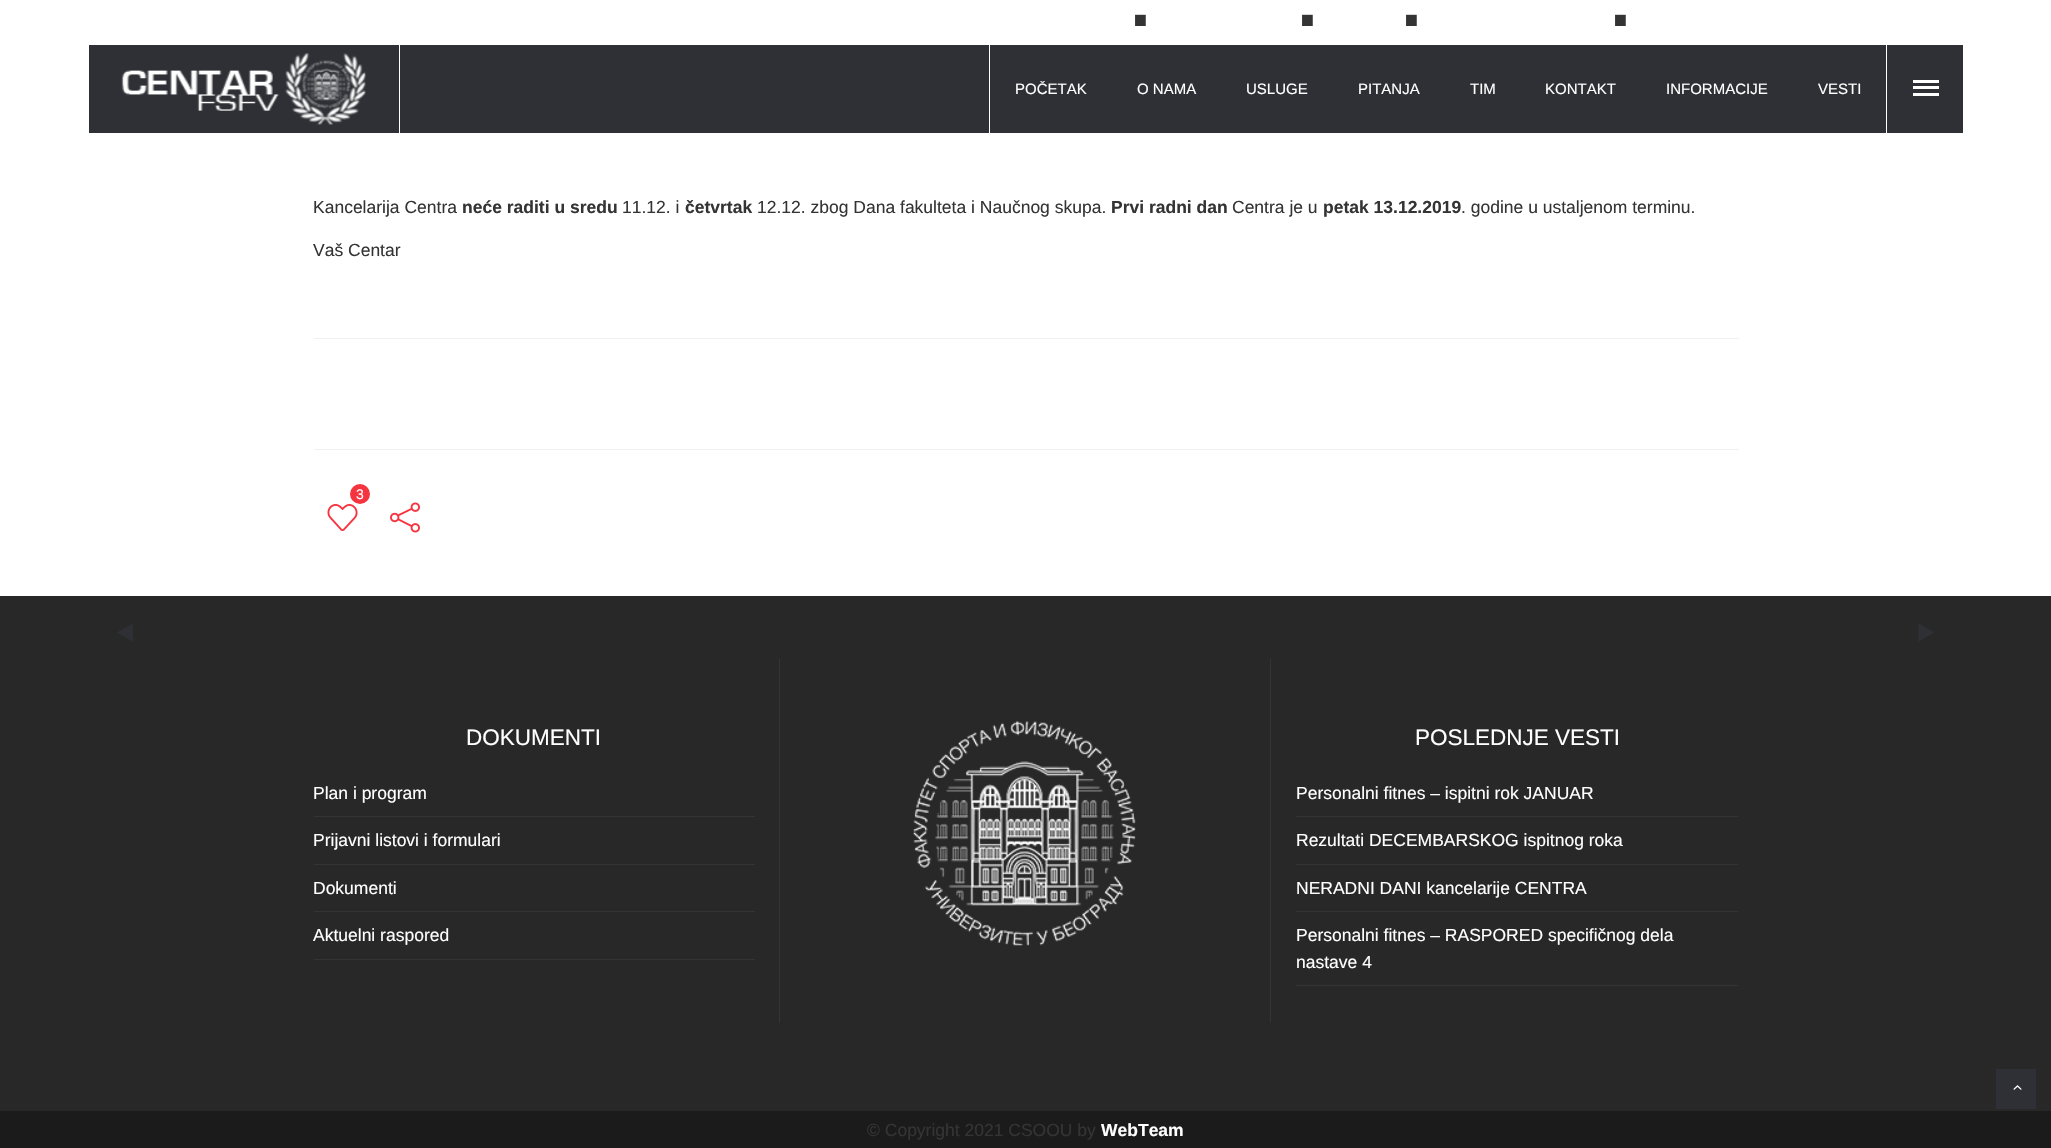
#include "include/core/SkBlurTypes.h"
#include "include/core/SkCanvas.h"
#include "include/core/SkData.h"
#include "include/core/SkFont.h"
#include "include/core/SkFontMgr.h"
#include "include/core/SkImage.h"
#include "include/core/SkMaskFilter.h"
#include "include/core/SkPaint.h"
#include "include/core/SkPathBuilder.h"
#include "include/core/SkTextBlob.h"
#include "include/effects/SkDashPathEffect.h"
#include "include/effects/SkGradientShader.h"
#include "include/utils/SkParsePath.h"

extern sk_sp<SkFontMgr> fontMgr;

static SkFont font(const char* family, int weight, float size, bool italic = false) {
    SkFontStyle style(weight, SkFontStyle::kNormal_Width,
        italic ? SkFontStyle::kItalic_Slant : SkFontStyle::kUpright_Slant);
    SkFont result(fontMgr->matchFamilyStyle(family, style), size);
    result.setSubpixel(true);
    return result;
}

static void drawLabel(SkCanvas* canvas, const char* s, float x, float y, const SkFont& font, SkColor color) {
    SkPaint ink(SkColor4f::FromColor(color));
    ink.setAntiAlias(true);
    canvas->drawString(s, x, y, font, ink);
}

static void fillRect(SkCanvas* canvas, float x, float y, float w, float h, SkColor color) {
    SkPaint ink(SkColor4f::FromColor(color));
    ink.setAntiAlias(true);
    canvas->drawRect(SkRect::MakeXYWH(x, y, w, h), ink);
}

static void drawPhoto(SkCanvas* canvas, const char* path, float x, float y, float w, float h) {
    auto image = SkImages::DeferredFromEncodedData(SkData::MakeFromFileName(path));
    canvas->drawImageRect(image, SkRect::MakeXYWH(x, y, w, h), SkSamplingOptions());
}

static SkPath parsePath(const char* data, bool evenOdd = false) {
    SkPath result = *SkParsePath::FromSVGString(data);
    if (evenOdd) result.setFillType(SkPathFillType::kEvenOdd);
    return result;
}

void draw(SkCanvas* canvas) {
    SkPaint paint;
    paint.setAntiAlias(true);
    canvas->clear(0xFFFFFFFF);
    SkFont font1 = font("Liberation Sans", 700, 75);
    drawLabel(canvas, ".", 1130, 26, font1, 0xFF343434);
    drawLabel(canvas, ".", 1297, 26, font1, 0xFF343434);
    drawLabel(canvas, ".", 1401, 26, font1, 0xFF343434);
    drawLabel(canvas, ".", 1610, 26, font1, 0xFF343434);
    SkFont font2 = font("Liberation Sans", 400, 17.5f);
    drawLabel(canvas, "Kancelarija Centra", 313, 213, font2, 0xFF343434);
    SkFont font3 = font("Liberation Sans", 700, 17.5f);
    drawLabel(canvas, "neće raditi u sredu", 462, 213, font3, 0xFF343434);
    drawLabel(canvas, "11.12. i", 622, 213, font2, 0xFF343434);
    drawLabel(canvas, "četvrtak", 685, 213, font3, 0xFF343434);
    drawLabel(canvas, "12.12. zbog Dana fakulteta i Naučnog skupa.", 757, 213, font2, 0xFF343434);
    drawLabel(canvas, "Prvi radni dan", 1111, 213, font3, 0xFF343434);
    drawLabel(canvas, "Centra je u", 1232, 213, font2, 0xFF343434);
    drawLabel(canvas, "petak 13.12.2019", 1323, 213, font3, 0xFF343434);
    drawLabel(canvas, ". godine u ustaljenom terminu.", 1461, 213, font2, 0xFF343434);
    drawLabel(canvas, "Vaš Centar", 313, 256, font2, 0xFF343434);
    fillRect(canvas, 314, 338, 1425, 1, 0xFFF0F0F0);
    fillRect(canvas, 314, 449, 1425, 1, 0xFFF0F0F0);
    paint.setColor(0xFFF63440);
    canvas->drawCircle(360, 494, 10, paint);
    SkFont font4 = font("Liberation Sans", 400, 14);
    drawLabel(canvas, "3", 356, 499, font4, 0xFFFFFFFF);
    drawPhoto(canvas, "assets/img1.png", 327, 504, 31, 27);
    drawPhoto(canvas, "assets/img2.png", 390, 502, 30, 31);
    fillRect(canvas, 0, 596, 2051, 515, 0xFF282828);
    paint.setColor(0xFF2F3035);
    canvas->drawPath(parsePath("M133 623.5L117 632.5L133 641.5Z"), paint);
    canvas->drawPath(parsePath("M1918.5 623.5V641.5L1934 632.5Z"), paint);
    SkFont font5 = font("Liberation Sans", 400, 22.5f);
    drawLabel(canvas, "DOKUMENTI", 466, 745, font5, 0xFFFFFFFF);
    fillRect(canvas, 314, 816, 441, 1, 0xFF343434);
    drawLabel(canvas, "Plan i program", 313, 799, font2, 0xFFFFFFFF);
    fillRect(canvas, 314, 864, 441, 1, 0xFF343434);
    drawLabel(canvas, "Prijavni listovi i formulari", 313, 846, font2, 0xFFFFFFFF);
    fillRect(canvas, 314, 911, 441, 1, 0xFF343434);
    drawLabel(canvas, "Dokumenti", 313, 894, font2, 0xFFFFFFFF);
    fillRect(canvas, 314, 959, 441, 1, 0xFF343434);
    drawLabel(canvas, "Aktuelni raspored", 313, 941, font2, 0xFFFFFFFF);
    fillRect(canvas, 779, 659, 1, 364, 0xFF343434);
    drawPhoto(canvas, "assets/img3.png", 913, 721, 223, 225);
    fillRect(canvas, 1270, 659, 1, 364, 0xFF343434);
    drawLabel(canvas, "POSLEDNJE VESTI", 1415, 745, font5, 0xFFFFFFFF);
    fillRect(canvas, 1296, 816, 442, 1, 0xFF343434);
    drawLabel(canvas, "Personalni fitnes – ispitni rok JANUAR", 1296, 799, font2, 0xFFFFFFFF);
    fillRect(canvas, 1296, 864, 442, 1, 0xFF343434);
    drawLabel(canvas, "Rezultati DECEMBARSKOG ispitnog roka", 1296, 846, font2, 0xFFFFFFFF);
    fillRect(canvas, 1296, 911, 442, 1, 0xFF343434);
    drawLabel(canvas, "NERADNI DANI kancelarije CENTRA", 1296, 894, font2, 0xFFFFFFFF);
    fillRect(canvas, 1296, 985, 442, 1, 0xFF343434);
    drawLabel(canvas, "Personalni fitnes – RASPORED specifičnog dela", 1296, 941, font2, 0xFFFFFFFF);
    drawLabel(canvas, "nastave 4", 1296, 968, font2, 0xFFFFFFFF);
    fillRect(canvas, 0, 1111, 2051, 37, 0xFF1B1B1B);
    drawLabel(canvas, "© Copyright 2021 CSOOU by", 867, 1136, font2, 0xFF343434);
    drawLabel(canvas, "WebTeam", 1101, 1136, font3, 0xFFFFFFFF);
    fillRect(canvas, 89, 45, 1874, 88, 0xFF2F3035);
    fillRect(canvas, 399, 45, 1, 88, 0xFFFFFFFF);
    drawPhoto(canvas, "assets/img4.png", 121, 53, 245, 72);
    fillRect(canvas, 989, 45, 1, 88, 0xFFFFFFFF);
    SkFont font6 = font("Liberation Sans", 400, 15);
    drawLabel(canvas, "POČETAK", 1015, 94, font6, 0xFFFFFFFF);
    drawLabel(canvas, "O NAMA", 1137, 94, font6, 0xFFFFFFFF);
    drawLabel(canvas, "USLUGE", 1246, 94, font6, 0xFFFFFFFF);
    drawLabel(canvas, "PITANJA", 1358, 94, font6, 0xFFFFFFFF);
    drawLabel(canvas, "TIM", 1470, 94, font6, 0xFFFFFFFF);
    drawLabel(canvas, "KONTAKT", 1545, 94, font6, 0xFFFFFFFF);
    drawLabel(canvas, "INFORMACIJE", 1666, 94, font6, 0xFFFFFFFF);
    drawLabel(canvas, "VESTI", 1818, 94, font6, 0xFFFFFFFF);
    fillRect(canvas, 1886, 45, 1, 88, 0xFFFFFFFF);
    fillRect(canvas, 1913, 86, 26, 3, 0xFFFFFFFF);
    fillRect(canvas, 1913, 80, 26, 3, 0xFFFFFFFF);
    fillRect(canvas, 1913, 93, 26, 3, 0xFFFFFFFF);
    fillRect(canvas, 1996, 1069, 40, 40, 0xFF2F3035);
    drawPhoto(canvas, "assets/img5.png", 2013, 1085, 9, 5);
}
